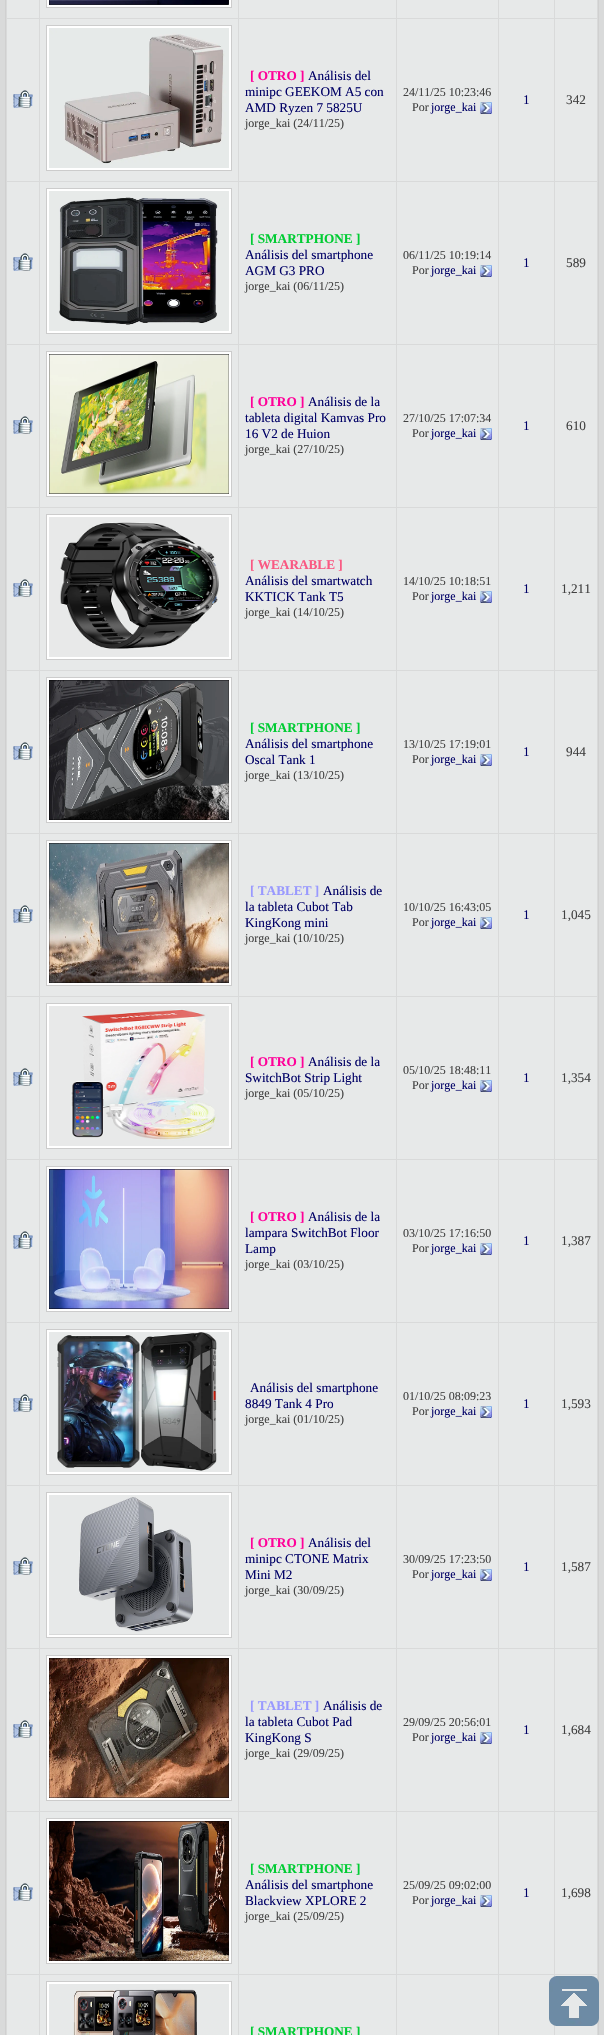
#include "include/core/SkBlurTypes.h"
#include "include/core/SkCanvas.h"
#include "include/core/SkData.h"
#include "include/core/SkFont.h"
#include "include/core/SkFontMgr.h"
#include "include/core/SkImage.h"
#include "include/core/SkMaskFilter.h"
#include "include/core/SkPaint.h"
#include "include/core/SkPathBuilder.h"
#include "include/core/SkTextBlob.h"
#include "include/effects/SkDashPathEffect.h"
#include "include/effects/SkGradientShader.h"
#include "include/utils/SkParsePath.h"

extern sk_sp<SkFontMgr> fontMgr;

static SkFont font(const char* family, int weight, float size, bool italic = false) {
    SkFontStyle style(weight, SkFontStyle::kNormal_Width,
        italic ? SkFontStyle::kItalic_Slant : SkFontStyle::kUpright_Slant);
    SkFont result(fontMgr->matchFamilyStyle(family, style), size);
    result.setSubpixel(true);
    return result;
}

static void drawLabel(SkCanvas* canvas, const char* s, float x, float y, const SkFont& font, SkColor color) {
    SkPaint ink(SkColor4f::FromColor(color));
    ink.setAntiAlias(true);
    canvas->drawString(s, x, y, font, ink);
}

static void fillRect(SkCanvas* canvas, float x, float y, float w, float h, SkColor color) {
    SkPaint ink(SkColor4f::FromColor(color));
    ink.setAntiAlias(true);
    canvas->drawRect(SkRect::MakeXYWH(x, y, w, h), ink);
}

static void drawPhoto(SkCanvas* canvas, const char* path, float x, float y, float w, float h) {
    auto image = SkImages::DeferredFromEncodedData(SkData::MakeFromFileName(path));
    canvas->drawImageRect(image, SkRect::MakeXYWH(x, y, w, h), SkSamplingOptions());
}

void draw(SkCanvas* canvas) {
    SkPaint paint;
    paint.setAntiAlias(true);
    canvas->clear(0xFFD9DADA);
    paint.setStroke(true);
    paint.setStrokeWidth(1);
    paint.setColor(0xFFD0D0D0);
    canvas->drawRect(SkRect::MakeXYWH(5.5f, -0.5f, 593, 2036), paint);
    fillRect(canvas, 7, 0, 32, 18, 0xFFE7E9E9);
    fillRect(canvas, 40, 0, 198, 18, 0xFFE7E9E9);
    paint.setStroke(false);
    paint.setColor(0xFFFFFFFF);
    canvas->drawRect(SkRect::MakeXYWH(46.5f, -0.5f, 185, 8), paint);
    paint.setStroke(true);
    paint.setColor(0xFFCCCCCC);
    canvas->drawRect(SkRect::MakeXYWH(46.5f, -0.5f, 185, 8), paint);
    drawPhoto(canvas, "assets/img1.png", 49, 0, 180, 5);
    fillRect(canvas, 239, 0, 157, 18, 0xFFE7E9E9);
    fillRect(canvas, 397, 0, 101, 18, 0xFFE7E9E9);
    fillRect(canvas, 499, 0, 55, 18, 0xFFE7E9E9);
    fillRect(canvas, 555, 0, 42, 18, 0xFFE7E9E9);
    fillRect(canvas, 7, 19, 32, 162, 0xFFE7E9E9);
    drawPhoto(canvas, "assets/img2.png", 13, 90, 20, 18);
    fillRect(canvas, 40, 19, 198, 162, 0xFFE7E9E9);
    paint.setStroke(false);
    paint.setColor(0xFFFFFFFF);
    canvas->drawRect(SkRect::MakeXYWH(46.5f, 25.5f, 185, 145), paint);
    paint.setStroke(true);
    paint.setColor(0xFFCCCCCC);
    canvas->drawRect(SkRect::MakeXYWH(46.5f, 25.5f, 185, 145), paint);
    drawPhoto(canvas, "assets/img3.png", 49, 28, 180, 140);
    fillRect(canvas, 239, 19, 157, 162, 0xFFE7E9E9);
    SkFont font1 = font("Liberation Serif", 700, 13.25f);
    drawLabel(canvas, "[ OTRO ]", 250, 80, font1, 0xFFFF0099);
    SkFont font2 = font("Liberation Serif", 400, 13.25f);
    drawLabel(canvas, "Análisis del", 308, 80, font2, 0xFF000066);
    drawLabel(canvas, "minipc GEEKOM A5 con", 245, 96, font2, 0xFF000066);
    drawLabel(canvas, "AMD Ryzen 7 5825U", 245, 112, font2, 0xFF000066);
    SkFont font3 = font("Liberation Serif", 400, 12);
    drawLabel(canvas, "jorge_kai (24/11/25)", 245, 127, font3, 0xFF414141);
    fillRect(canvas, 397, 19, 101, 162, 0xFFE7E9E9);
    drawLabel(canvas, "24/11/25 10:23:46", 403, 96, font3, 0xFF414141);
    drawLabel(canvas, "Por", 412, 111, font3, 0xFF414141);
    drawLabel(canvas, "jorge_kai", 431, 111, font3, 0xFF000066);
    drawPhoto(canvas, "assets/img4.png", 480, 102, 12, 12);
    fillRect(canvas, 499, 19, 55, 162, 0xFFE7E9E9);
    drawLabel(canvas, "1", 523, 104, font2, 0xFF000066);
    fillRect(canvas, 555, 19, 42, 162, 0xFFE7E9E9);
    drawLabel(canvas, "342", 566, 104, font2, 0xFF414141);
    fillRect(canvas, 7, 182, 32, 162, 0xFFE7E9E9);
    drawPhoto(canvas, "assets/img2.png", 13, 253, 20, 18);
    fillRect(canvas, 40, 182, 198, 162, 0xFFE7E9E9);
    paint.setStroke(false);
    paint.setColor(0xFFFFFFFF);
    canvas->drawRect(SkRect::MakeXYWH(46.5f, 188.5f, 185, 145), paint);
    paint.setStroke(true);
    paint.setColor(0xFFCCCCCC);
    canvas->drawRect(SkRect::MakeXYWH(46.5f, 188.5f, 185, 145), paint);
    drawPhoto(canvas, "assets/img5.png", 49, 191, 180, 140);
    fillRect(canvas, 239, 182, 157, 162, 0xFFE7E9E9);
    drawLabel(canvas, "[ SMARTPHONE ]", 250, 243, font1, 0xFF00CC33);
    drawLabel(canvas, "Análisis del smartphone", 245, 259, font2, 0xFF000066);
    drawLabel(canvas, "AGM G3 PRO", 245, 275, font2, 0xFF000066);
    drawLabel(canvas, "jorge_kai (06/11/25)", 245, 290, font3, 0xFF414141);
    fillRect(canvas, 397, 182, 101, 162, 0xFFE7E9E9);
    drawLabel(canvas, "06/11/25 10:19:14", 403, 259, font3, 0xFF414141);
    drawLabel(canvas, "Por", 412, 274, font3, 0xFF414141);
    drawLabel(canvas, "jorge_kai", 431, 274, font3, 0xFF000066);
    drawPhoto(canvas, "assets/img4.png", 480, 265, 12, 12);
    fillRect(canvas, 499, 182, 55, 162, 0xFFE7E9E9);
    drawLabel(canvas, "1", 523, 267, font2, 0xFF000066);
    fillRect(canvas, 555, 182, 42, 162, 0xFFE7E9E9);
    drawLabel(canvas, "589", 566, 267, font2, 0xFF414141);
    fillRect(canvas, 7, 345, 32, 162, 0xFFE7E9E9);
    drawPhoto(canvas, "assets/img2.png", 13, 416, 20, 18);
    fillRect(canvas, 40, 345, 198, 162, 0xFFE7E9E9);
    paint.setStroke(false);
    paint.setColor(0xFFFFFFFF);
    canvas->drawRect(SkRect::MakeXYWH(46.5f, 351.5f, 185, 145), paint);
    paint.setStroke(true);
    paint.setColor(0xFFCCCCCC);
    canvas->drawRect(SkRect::MakeXYWH(46.5f, 351.5f, 185, 145), paint);
    drawPhoto(canvas, "assets/img6.png", 49, 354, 180, 140);
    fillRect(canvas, 239, 345, 157, 162, 0xFFE7E9E9);
    drawLabel(canvas, "[ OTRO ]", 250, 406, font1, 0xFFFF0099);
    drawLabel(canvas, "Análisis de la", 308, 406, font2, 0xFF000066);
    drawLabel(canvas, "tableta digital Kamvas Pro", 245, 422, font2, 0xFF000066);
    drawLabel(canvas, "16 V2 de Huion", 245, 438, font2, 0xFF000066);
    drawLabel(canvas, "jorge_kai (27/10/25)", 245, 453, font3, 0xFF414141);
    fillRect(canvas, 397, 345, 101, 162, 0xFFE7E9E9);
    drawLabel(canvas, "27/10/25 17:07:34", 403, 422, font3, 0xFF414141);
    drawLabel(canvas, "Por", 412, 437, font3, 0xFF414141);
    drawLabel(canvas, "jorge_kai", 431, 437, font3, 0xFF000066);
    drawPhoto(canvas, "assets/img4.png", 480, 428, 12, 12);
    fillRect(canvas, 499, 345, 55, 162, 0xFFE7E9E9);
    drawLabel(canvas, "1", 523, 430, font2, 0xFF000066);
    fillRect(canvas, 555, 345, 42, 162, 0xFFE7E9E9);
    drawLabel(canvas, "610", 566, 430, font2, 0xFF414141);
    fillRect(canvas, 7, 508, 32, 162, 0xFFE7E9E9);
    drawPhoto(canvas, "assets/img2.png", 13, 579, 20, 18);
    fillRect(canvas, 40, 508, 198, 162, 0xFFE7E9E9);
    paint.setStroke(false);
    paint.setColor(0xFFFFFFFF);
    canvas->drawRect(SkRect::MakeXYWH(46.5f, 514.5f, 185, 145), paint);
    paint.setStroke(true);
    paint.setColor(0xFFCCCCCC);
    canvas->drawRect(SkRect::MakeXYWH(46.5f, 514.5f, 185, 145), paint);
    drawPhoto(canvas, "assets/img7.png", 49, 517, 180, 140);
    fillRect(canvas, 239, 508, 157, 162, 0xFFE7E9E9);
    drawLabel(canvas, "[ WEARABLE ]", 250, 569, font1, 0xFFFA5882);
    drawLabel(canvas, "Análisis del smartwatch", 245, 585, font2, 0xFF000066);
    drawLabel(canvas, "KKTICK Tank T5", 245, 601, font2, 0xFF000066);
    drawLabel(canvas, "jorge_kai (14/10/25)", 245, 616, font3, 0xFF414141);
    fillRect(canvas, 397, 508, 101, 162, 0xFFE7E9E9);
    drawLabel(canvas, "14/10/25 10:18:51", 403, 585, font3, 0xFF414141);
    drawLabel(canvas, "Por", 412, 600, font3, 0xFF414141);
    drawLabel(canvas, "jorge_kai", 431, 600, font3, 0xFF000066);
    drawPhoto(canvas, "assets/img4.png", 480, 591, 12, 12);
    fillRect(canvas, 499, 508, 55, 162, 0xFFE7E9E9);
    drawLabel(canvas, "1", 523, 593, font2, 0xFF000066);
    fillRect(canvas, 555, 508, 42, 162, 0xFFE7E9E9);
    drawLabel(canvas, "1,211", 561, 593, font2, 0xFF414141);
    fillRect(canvas, 7, 671, 32, 162, 0xFFE7E9E9);
    drawPhoto(canvas, "assets/img2.png", 13, 742, 20, 18);
    fillRect(canvas, 40, 671, 198, 162, 0xFFE7E9E9);
    paint.setStroke(false);
    paint.setColor(0xFFFFFFFF);
    canvas->drawRect(SkRect::MakeXYWH(46.5f, 677.5f, 185, 145), paint);
    paint.setStroke(true);
    paint.setColor(0xFFCCCCCC);
    canvas->drawRect(SkRect::MakeXYWH(46.5f, 677.5f, 185, 145), paint);
    drawPhoto(canvas, "assets/img8.png", 49, 680, 180, 140);
    fillRect(canvas, 239, 671, 157, 162, 0xFFE7E9E9);
    drawLabel(canvas, "[ SMARTPHONE ]", 250, 732, font1, 0xFF00CC33);
    drawLabel(canvas, "Análisis del smartphone", 245, 748, font2, 0xFF000066);
    drawLabel(canvas, "Oscal Tank 1", 245, 764, font2, 0xFF000066);
    drawLabel(canvas, "jorge_kai (13/10/25)", 245, 779, font3, 0xFF414141);
    fillRect(canvas, 397, 671, 101, 162, 0xFFE7E9E9);
    drawLabel(canvas, "13/10/25 17:19:01", 403, 748, font3, 0xFF414141);
    drawLabel(canvas, "Por", 412, 763, font3, 0xFF414141);
    drawLabel(canvas, "jorge_kai", 431, 763, font3, 0xFF000066);
    drawPhoto(canvas, "assets/img4.png", 480, 754, 12, 12);
    fillRect(canvas, 499, 671, 55, 162, 0xFFE7E9E9);
    drawLabel(canvas, "1", 523, 756, font2, 0xFF000066);
    fillRect(canvas, 555, 671, 42, 162, 0xFFE7E9E9);
    drawLabel(canvas, "944", 566, 756, font2, 0xFF414141);
    fillRect(canvas, 7, 834, 32, 162, 0xFFE7E9E9);
    drawPhoto(canvas, "assets/img2.png", 13, 905, 20, 18);
    fillRect(canvas, 40, 834, 198, 162, 0xFFE7E9E9);
    paint.setStroke(false);
    paint.setColor(0xFFFFFFFF);
    canvas->drawRect(SkRect::MakeXYWH(46.5f, 840.5f, 185, 145), paint);
    paint.setStroke(true);
    paint.setColor(0xFFCCCCCC);
    canvas->drawRect(SkRect::MakeXYWH(46.5f, 840.5f, 185, 145), paint);
    drawPhoto(canvas, "assets/img9.png", 49, 843, 180, 140);
    fillRect(canvas, 239, 834, 157, 162, 0xFFE7E9E9);
    drawLabel(canvas, "[ TABLET ]", 250, 895, font1, 0xFF9999FF);
    drawLabel(canvas, "Análisis de", 323, 895, font2, 0xFF000066);
    drawLabel(canvas, "la tableta Cubot Tab", 245, 911, font2, 0xFF000066);
    drawLabel(canvas, "KingKong mini", 245, 927, font2, 0xFF000066);
    drawLabel(canvas, "jorge_kai (10/10/25)", 245, 942, font3, 0xFF414141);
    fillRect(canvas, 397, 834, 101, 162, 0xFFE7E9E9);
    drawLabel(canvas, "10/10/25 16:43:05", 403, 911, font3, 0xFF414141);
    drawLabel(canvas, "Por", 412, 926, font3, 0xFF414141);
    drawLabel(canvas, "jorge_kai", 431, 926, font3, 0xFF000066);
    drawPhoto(canvas, "assets/img4.png", 480, 917, 12, 12);
    fillRect(canvas, 499, 834, 55, 162, 0xFFE7E9E9);
    drawLabel(canvas, "1", 523, 919, font2, 0xFF000066);
    fillRect(canvas, 555, 834, 42, 162, 0xFFE7E9E9);
    drawLabel(canvas, "1,045", 561, 919, font2, 0xFF414141);
    fillRect(canvas, 7, 997, 32, 162, 0xFFE7E9E9);
    drawPhoto(canvas, "assets/img2.png", 13, 1068, 20, 18);
    fillRect(canvas, 40, 997, 198, 162, 0xFFE7E9E9);
    paint.setStroke(false);
    paint.setColor(0xFFFFFFFF);
    canvas->drawRect(SkRect::MakeXYWH(46.5f, 1003.5f, 185, 145), paint);
    paint.setStroke(true);
    paint.setColor(0xFFCCCCCC);
    canvas->drawRect(SkRect::MakeXYWH(46.5f, 1003.5f, 185, 145), paint);
    drawPhoto(canvas, "assets/img10.png", 49, 1006, 180, 140);
    fillRect(canvas, 239, 997, 157, 162, 0xFFE7E9E9);
    drawLabel(canvas, "[ OTRO ]", 250, 1066, font1, 0xFFFF0099);
    drawLabel(canvas, "Análisis de la", 308, 1066, font2, 0xFF000066);
    drawLabel(canvas, "SwitchBot Strip Light", 245, 1082, font2, 0xFF000066);
    drawLabel(canvas, "jorge_kai (05/10/25)", 245, 1097, font3, 0xFF414141);
    fillRect(canvas, 397, 997, 101, 162, 0xFFE7E9E9);
    drawLabel(canvas, "05/10/25 18:48:11", 403, 1074, font3, 0xFF414141);
    drawLabel(canvas, "Por", 412, 1089, font3, 0xFF414141);
    drawLabel(canvas, "jorge_kai", 431, 1089, font3, 0xFF000066);
    drawPhoto(canvas, "assets/img4.png", 480, 1080, 12, 12);
    fillRect(canvas, 499, 997, 55, 162, 0xFFE7E9E9);
    drawLabel(canvas, "1", 523, 1082, font2, 0xFF000066);
    fillRect(canvas, 555, 997, 42, 162, 0xFFE7E9E9);
    drawLabel(canvas, "1,354", 561, 1082, font2, 0xFF414141);
    fillRect(canvas, 7, 1160, 32, 162, 0xFFE7E9E9);
    drawPhoto(canvas, "assets/img2.png", 13, 1231, 20, 18);
    fillRect(canvas, 40, 1160, 198, 162, 0xFFE7E9E9);
    paint.setStroke(false);
    paint.setColor(0xFFFFFFFF);
    canvas->drawRect(SkRect::MakeXYWH(46.5f, 1166.5f, 185, 145), paint);
    paint.setStroke(true);
    paint.setColor(0xFFCCCCCC);
    canvas->drawRect(SkRect::MakeXYWH(46.5f, 1166.5f, 185, 145), paint);
    drawPhoto(canvas, "assets/img11.png", 49, 1169, 180, 140);
    fillRect(canvas, 239, 1160, 157, 162, 0xFFE7E9E9);
    drawLabel(canvas, "[ OTRO ]", 250, 1221, font1, 0xFFFF0099);
    drawLabel(canvas, "Análisis de la", 308, 1221, font2, 0xFF000066);
    drawLabel(canvas, "lampara SwitchBot Floor", 245, 1237, font2, 0xFF000066);
    drawLabel(canvas, "Lamp", 245, 1253, font2, 0xFF000066);
    drawLabel(canvas, "jorge_kai (03/10/25)", 245, 1268, font3, 0xFF414141);
    fillRect(canvas, 397, 1160, 101, 162, 0xFFE7E9E9);
    drawLabel(canvas, "03/10/25 17:16:50", 403, 1237, font3, 0xFF414141);
    drawLabel(canvas, "Por", 412, 1252, font3, 0xFF414141);
    drawLabel(canvas, "jorge_kai", 431, 1252, font3, 0xFF000066);
    drawPhoto(canvas, "assets/img4.png", 480, 1243, 12, 12);
    fillRect(canvas, 499, 1160, 55, 162, 0xFFE7E9E9);
    drawLabel(canvas, "1", 523, 1245, font2, 0xFF000066);
    fillRect(canvas, 555, 1160, 42, 162, 0xFFE7E9E9);
    drawLabel(canvas, "1,387", 561, 1245, font2, 0xFF414141);
    fillRect(canvas, 7, 1323, 32, 162, 0xFFE7E9E9);
    drawPhoto(canvas, "assets/img2.png", 13, 1394, 20, 18);
    fillRect(canvas, 40, 1323, 198, 162, 0xFFE7E9E9);
    paint.setStroke(false);
    paint.setColor(0xFFFFFFFF);
    canvas->drawRect(SkRect::MakeXYWH(46.5f, 1329.5f, 185, 145), paint);
    paint.setStroke(true);
    paint.setColor(0xFFCCCCCC);
    canvas->drawRect(SkRect::MakeXYWH(46.5f, 1329.5f, 185, 145), paint);
    drawPhoto(canvas, "assets/img12.png", 49, 1332, 180, 140);
    fillRect(canvas, 239, 1323, 157, 162, 0xFFE7E9E9);
    drawLabel(canvas, "Análisis del smartphone", 250, 1392, font2, 0xFF000066);
    drawLabel(canvas, "8849 Tank 4 Pro", 245, 1408, font2, 0xFF000066);
    drawLabel(canvas, "jorge_kai (01/10/25)", 245, 1423, font3, 0xFF414141);
    fillRect(canvas, 397, 1323, 101, 162, 0xFFE7E9E9);
    drawLabel(canvas, "01/10/25 08:09:23", 403, 1400, font3, 0xFF414141);
    drawLabel(canvas, "Por", 412, 1415, font3, 0xFF414141);
    drawLabel(canvas, "jorge_kai", 431, 1415, font3, 0xFF000066);
    drawPhoto(canvas, "assets/img4.png", 480, 1406, 12, 12);
    fillRect(canvas, 499, 1323, 55, 162, 0xFFE7E9E9);
    drawLabel(canvas, "1", 523, 1408, font2, 0xFF000066);
    fillRect(canvas, 555, 1323, 42, 162, 0xFFE7E9E9);
    drawLabel(canvas, "1,593", 561, 1408, font2, 0xFF414141);
    fillRect(canvas, 7, 1486, 32, 162, 0xFFE7E9E9);
    drawPhoto(canvas, "assets/img2.png", 13, 1557, 20, 18);
    fillRect(canvas, 40, 1486, 198, 162, 0xFFE7E9E9);
    paint.setStroke(false);
    paint.setColor(0xFFFFFFFF);
    canvas->drawRect(SkRect::MakeXYWH(46.5f, 1492.5f, 185, 145), paint);
    paint.setStroke(true);
    paint.setColor(0xFFCCCCCC);
    canvas->drawRect(SkRect::MakeXYWH(46.5f, 1492.5f, 185, 145), paint);
    drawPhoto(canvas, "assets/img13.png", 49, 1495, 180, 140);
    fillRect(canvas, 239, 1486, 157, 162, 0xFFE7E9E9);
    drawLabel(canvas, "[ OTRO ]", 250, 1547, font1, 0xFFFF0099);
    drawLabel(canvas, "Análisis del", 308, 1547, font2, 0xFF000066);
    drawLabel(canvas, "minipc CTONE Matrix", 245, 1563, font2, 0xFF000066);
    drawLabel(canvas, "Mini M2", 245, 1579, font2, 0xFF000066);
    drawLabel(canvas, "jorge_kai (30/09/25)", 245, 1594, font3, 0xFF414141);
    fillRect(canvas, 397, 1486, 101, 162, 0xFFE7E9E9);
    drawLabel(canvas, "30/09/25 17:23:50", 403, 1563, font3, 0xFF414141);
    drawLabel(canvas, "Por", 412, 1578, font3, 0xFF414141);
    drawLabel(canvas, "jorge_kai", 431, 1578, font3, 0xFF000066);
    drawPhoto(canvas, "assets/img4.png", 480, 1569, 12, 12);
    fillRect(canvas, 499, 1486, 55, 162, 0xFFE7E9E9);
    drawLabel(canvas, "1", 523, 1571, font2, 0xFF000066);
    fillRect(canvas, 555, 1486, 42, 162, 0xFFE7E9E9);
    drawLabel(canvas, "1,587", 561, 1571, font2, 0xFF414141);
    fillRect(canvas, 7, 1649, 32, 162, 0xFFE7E9E9);
    drawPhoto(canvas, "assets/img2.png", 13, 1720, 20, 18);
    fillRect(canvas, 40, 1649, 198, 162, 0xFFE7E9E9);
    paint.setStroke(false);
    paint.setColor(0xFFFFFFFF);
    canvas->drawRect(SkRect::MakeXYWH(46.5f, 1655.5f, 185, 145), paint);
    paint.setStroke(true);
    paint.setColor(0xFFCCCCCC);
    canvas->drawRect(SkRect::MakeXYWH(46.5f, 1655.5f, 185, 145), paint);
    drawPhoto(canvas, "assets/img14.png", 49, 1658, 180, 140);
    fillRect(canvas, 239, 1649, 157, 162, 0xFFE7E9E9);
    drawLabel(canvas, "[ TABLET ]", 250, 1710, font1, 0xFF9999FF);
    drawLabel(canvas, "Análisis de", 323, 1710, font2, 0xFF000066);
    drawLabel(canvas, "la tableta Cubot Pad", 245, 1726, font2, 0xFF000066);
    drawLabel(canvas, "KingKong S", 245, 1742, font2, 0xFF000066);
    drawLabel(canvas, "jorge_kai (29/09/25)", 245, 1757, font3, 0xFF414141);
    fillRect(canvas, 397, 1649, 101, 162, 0xFFE7E9E9);
    drawLabel(canvas, "29/09/25 20:56:01", 403, 1726, font3, 0xFF414141);
    drawLabel(canvas, "Por", 412, 1741, font3, 0xFF414141);
    drawLabel(canvas, "jorge_kai", 431, 1741, font3, 0xFF000066);
    drawPhoto(canvas, "assets/img4.png", 480, 1732, 12, 12);
    fillRect(canvas, 499, 1649, 55, 162, 0xFFE7E9E9);
    drawLabel(canvas, "1", 523, 1734, font2, 0xFF000066);
    fillRect(canvas, 555, 1649, 42, 162, 0xFFE7E9E9);
    drawLabel(canvas, "1,684", 561, 1734, font2, 0xFF414141);
    fillRect(canvas, 7, 1812, 32, 162, 0xFFE7E9E9);
    drawPhoto(canvas, "assets/img2.png", 13, 1883, 20, 18);
    fillRect(canvas, 40, 1812, 198, 162, 0xFFE7E9E9);
    paint.setStroke(false);
    paint.setColor(0xFFFFFFFF);
    canvas->drawRect(SkRect::MakeXYWH(46.5f, 1818.5f, 185, 145), paint);
    paint.setStroke(true);
    paint.setColor(0xFFCCCCCC);
    canvas->drawRect(SkRect::MakeXYWH(46.5f, 1818.5f, 185, 145), paint);
    drawPhoto(canvas, "assets/img15.png", 49, 1821, 180, 140);
    fillRect(canvas, 239, 1812, 157, 162, 0xFFE7E9E9);
    drawLabel(canvas, "[ SMARTPHONE ]", 250, 1873, font1, 0xFF00CC33);
    drawLabel(canvas, "Análisis del smartphone", 245, 1889, font2, 0xFF000066);
    drawLabel(canvas, "Blackview XPLORE 2", 245, 1905, font2, 0xFF000066);
    drawLabel(canvas, "jorge_kai (25/09/25)", 245, 1920, font3, 0xFF414141);
    fillRect(canvas, 397, 1812, 101, 162, 0xFFE7E9E9);
    drawLabel(canvas, "25/09/25 09:02:00", 403, 1889, font3, 0xFF414141);
    drawLabel(canvas, "Por", 412, 1904, font3, 0xFF414141);
    drawLabel(canvas, "jorge_kai", 431, 1904, font3, 0xFF000066);
    drawPhoto(canvas, "assets/img4.png", 480, 1895, 12, 12);
    fillRect(canvas, 499, 1812, 55, 162, 0xFFE7E9E9);
    drawLabel(canvas, "1", 523, 1897, font2, 0xFF000066);
    fillRect(canvas, 555, 1812, 42, 162, 0xFFE7E9E9);
    drawLabel(canvas, "1,698", 561, 1897, font2, 0xFF414141);
    fillRect(canvas, 7, 1975, 32, 60, 0xFFE7E9E9);
    fillRect(canvas, 40, 1975, 198, 60, 0xFFE7E9E9);
    paint.setStroke(false);
    paint.setColor(0xFFFFFFFF);
    canvas->drawRect(SkRect::MakeXYWH(46.5f, 1981.5f, 185, 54), paint);
    paint.setStroke(true);
    paint.setColor(0xFFCCCCCC);
    canvas->drawRect(SkRect::MakeXYWH(46.5f, 1981.5f, 185, 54), paint);
    drawPhoto(canvas, "assets/img16.png", 49, 1984, 180, 51);
    fillRect(canvas, 239, 1975, 157, 60, 0xFFE7E9E9);
    drawLabel(canvas, "[ SMARTPHONE ]", 250, 2036, font1, 0xFF00CC33);
    fillRect(canvas, 397, 1975, 101, 60, 0xFFE7E9E9);
    fillRect(canvas, 499, 1975, 55, 60, 0xFFE7E9E9);
    fillRect(canvas, 555, 1975, 42, 60, 0xFFE7E9E9);
    drawPhoto(canvas, "assets/img17.png", 549, 1976, 50, 50);
}
